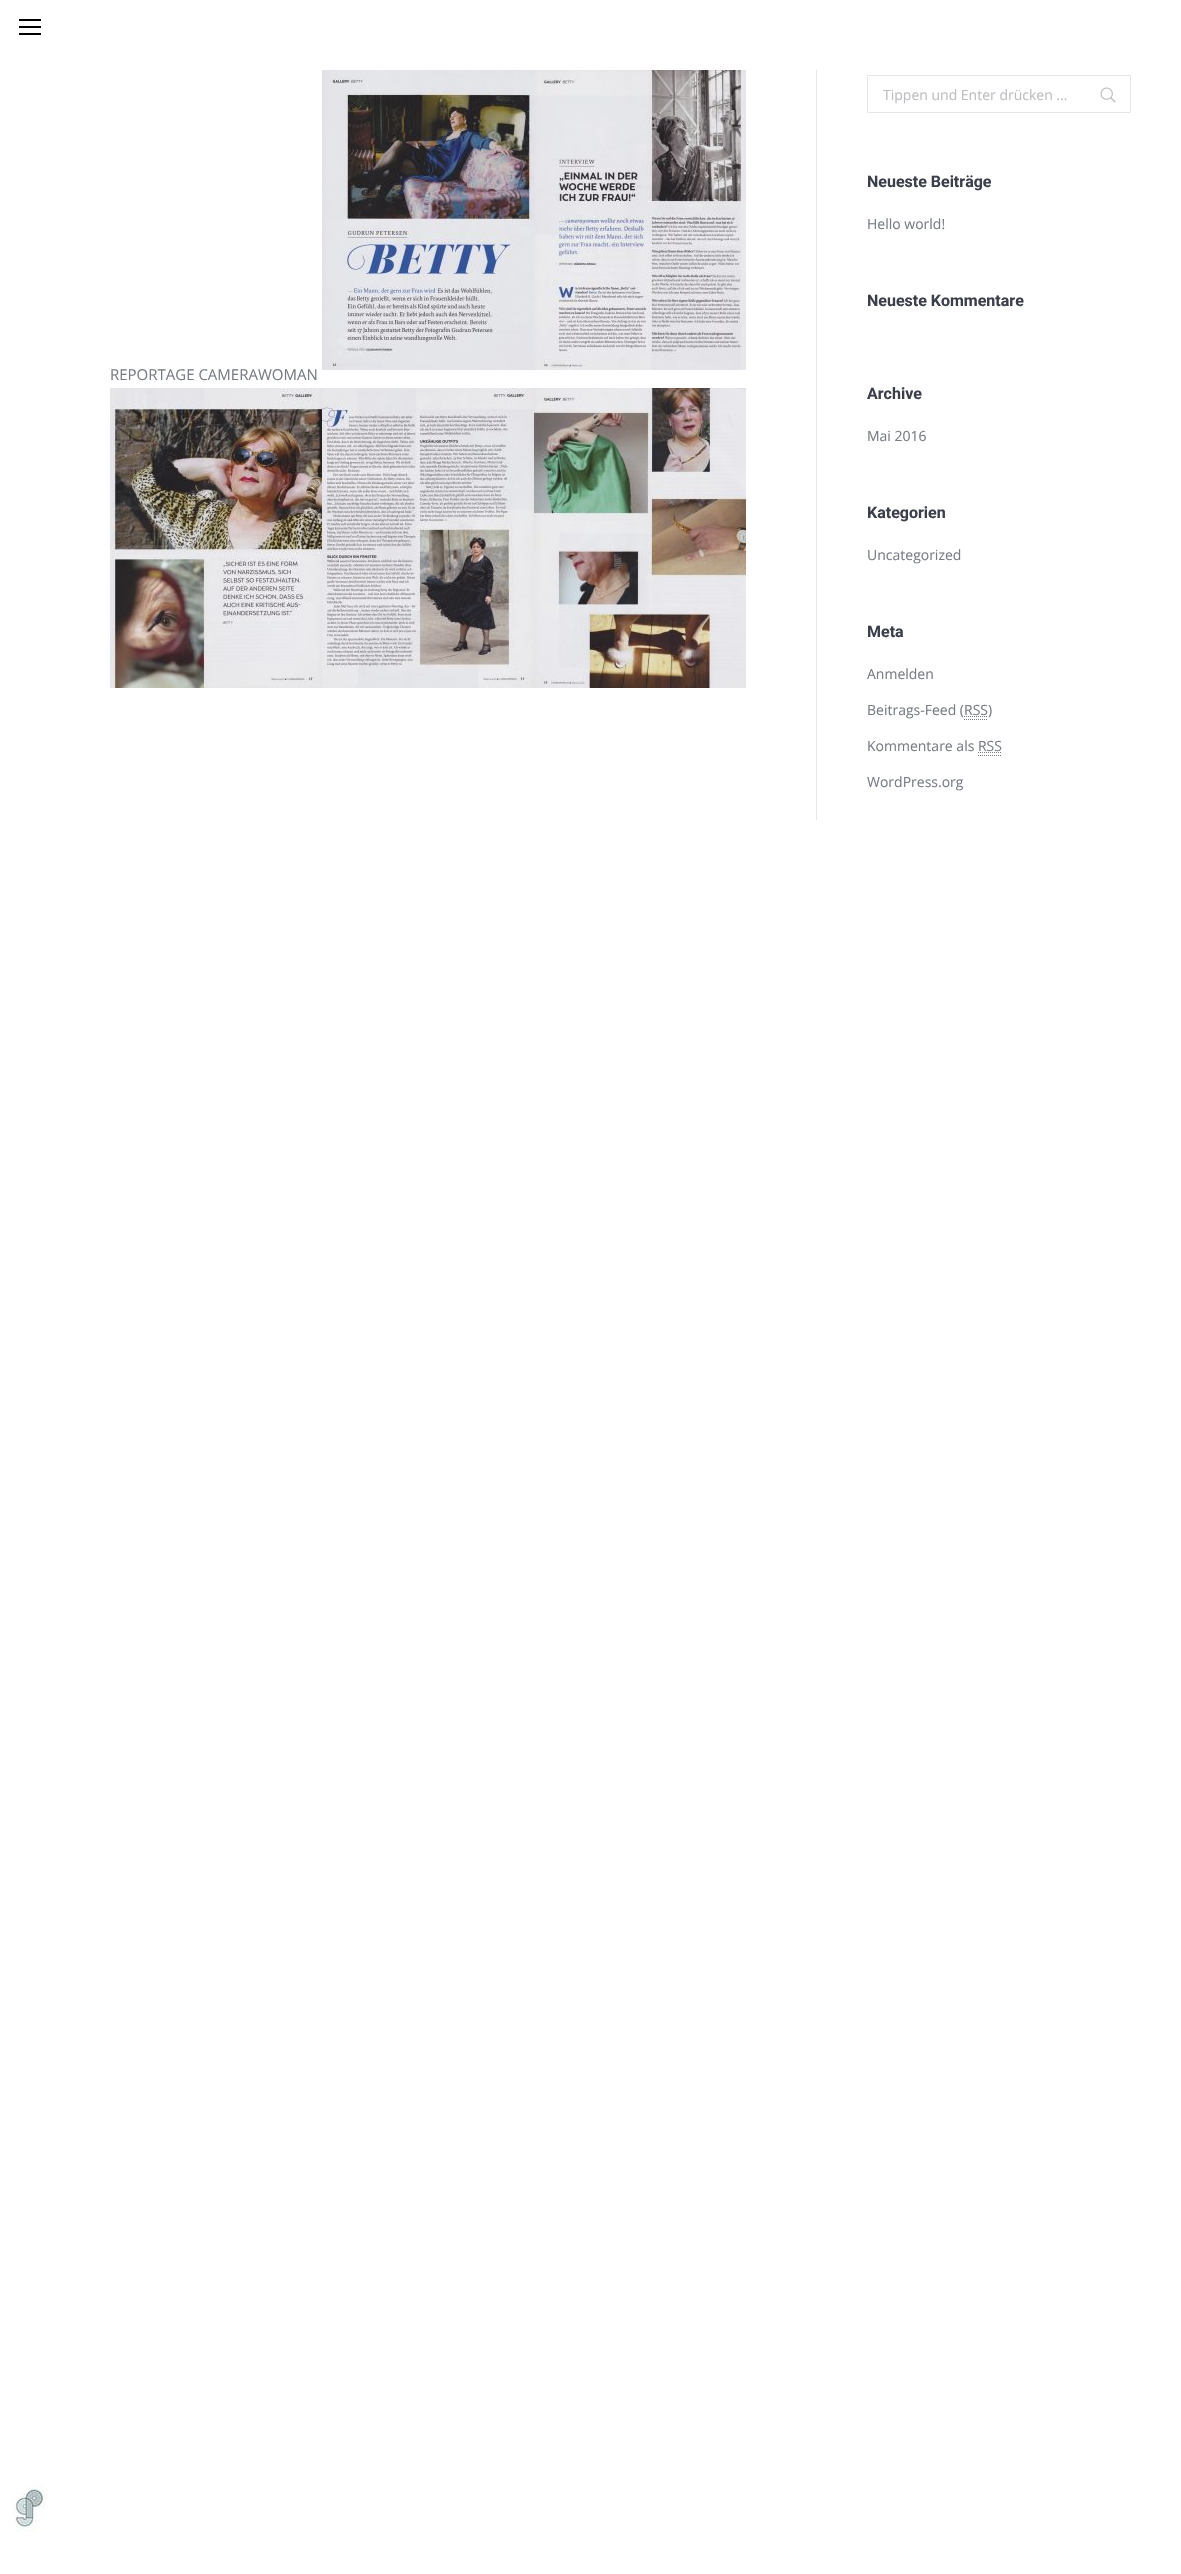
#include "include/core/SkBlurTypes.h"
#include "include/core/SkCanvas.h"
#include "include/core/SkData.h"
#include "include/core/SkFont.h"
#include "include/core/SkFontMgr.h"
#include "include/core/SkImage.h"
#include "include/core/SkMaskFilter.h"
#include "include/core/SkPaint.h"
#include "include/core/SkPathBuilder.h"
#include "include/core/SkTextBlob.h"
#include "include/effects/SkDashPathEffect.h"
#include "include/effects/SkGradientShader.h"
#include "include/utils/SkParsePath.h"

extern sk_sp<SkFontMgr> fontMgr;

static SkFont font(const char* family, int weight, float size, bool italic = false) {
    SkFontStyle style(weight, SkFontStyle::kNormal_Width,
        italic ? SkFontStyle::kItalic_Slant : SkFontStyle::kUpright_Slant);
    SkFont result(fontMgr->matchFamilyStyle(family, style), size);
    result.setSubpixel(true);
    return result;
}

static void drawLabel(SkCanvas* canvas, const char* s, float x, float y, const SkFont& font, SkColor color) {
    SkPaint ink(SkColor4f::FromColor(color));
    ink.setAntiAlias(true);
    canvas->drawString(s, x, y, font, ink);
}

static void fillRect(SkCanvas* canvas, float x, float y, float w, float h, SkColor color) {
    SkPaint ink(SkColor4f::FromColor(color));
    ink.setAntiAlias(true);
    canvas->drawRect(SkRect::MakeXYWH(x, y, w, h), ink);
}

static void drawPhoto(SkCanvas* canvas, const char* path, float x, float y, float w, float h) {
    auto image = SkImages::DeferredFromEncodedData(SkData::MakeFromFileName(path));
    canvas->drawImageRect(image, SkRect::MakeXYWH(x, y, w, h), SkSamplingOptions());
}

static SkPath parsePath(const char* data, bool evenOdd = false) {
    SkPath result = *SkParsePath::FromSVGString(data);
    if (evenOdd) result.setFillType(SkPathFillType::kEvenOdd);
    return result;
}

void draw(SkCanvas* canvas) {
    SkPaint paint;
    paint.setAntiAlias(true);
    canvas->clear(0xFFFFFFFF);
    fillRect(canvas, 19, 26, 22, 2, 0xFF000000);
    fillRect(canvas, 19, 19, 22, 2, 0xFF000000);
    fillRect(canvas, 19, 33, 22, 2, 0xFF000000);
    drawPhoto(canvas, "assets/img1.png", 13, 2485, 32, 47);
    drawPhoto(canvas, "assets/img2.png", 322, 70, 212, 300);
    drawPhoto(canvas, "assets/img3.png", 534, 70, 212, 300);
    SkFont font1 = font("Open Sans", 400, 15);
    drawLabel(canvas, "REPORTAGE CAMERAWOMAN", 110, 380, font1, 0xFF787D85);
    drawPhoto(canvas, "assets/img4.png", 110, 388, 212, 300);
    drawPhoto(canvas, "assets/img5.png", 322, 388, 212, 300);
    drawPhoto(canvas, "assets/img6.png", 534, 388, 212, 300);
    fillRect(canvas, 816, 70, 1, 750, 0xFFE6E7E9);
    paint.setStroke(true);
    paint.setStrokeWidth(1);
    paint.setColor(0xFFE6E7E9);
    canvas->drawRoundRect(SkRect::MakeXYWH(867.5f, 75.5f, 263, 37), 0.5f, 0.5f, paint);
    SkFont font2 = font("Open Sans", 400, 14);
    drawLabel(canvas, "Tippen und Enter drücken …", 883, 100, font2, 0xFFBCBEC2);
    drawPhoto(canvas, "assets/img7.png", 1100, 87, 16, 16);
    SkFont font3 = font("Roboto", 700, 16);
    drawLabel(canvas, "Neueste Beiträge", 867, 187, font3, 0xFF3B3F4A);
    drawLabel(canvas, "Hello world!", 867, 229, font2, 0xFF787D85);
    drawLabel(canvas, "Neueste Kommentare", 867, 306, font3, 0xFF3B3F4A);
    drawLabel(canvas, "Archive", 867, 399, font3, 0xFF3B3F4A);
    drawLabel(canvas, "Mai 2016", 867, 441, font2, 0xFF787D85);
    drawLabel(canvas, "Kategorien", 867, 518, font3, 0xFF3B3F4A);
    drawLabel(canvas, "Uncategorized", 867, 560, font2, 0xFF787D85);
    drawLabel(canvas, "Meta", 867, 637, font3, 0xFF3B3F4A);
    drawLabel(canvas, "Anmelden", 867, 679, font2, 0xFF787D85);
    drawLabel(canvas, "Beitrags-Feed (RSS)", 867, 715, font2, 0xFF787D85);
    paint.setColor(0xFF787D85);
    paint.setPathEffect(SkDashPathEffect::Make({{1, 1}}, 0));
    canvas->drawPath(parsePath("M964 719.5H988M964 716.5H988"), paint);
    paint.setPathEffect(nullptr);
    drawLabel(canvas, "Kommentare als RSS", 867, 751, font2, 0xFF787D85);
    paint.setPathEffect(SkDashPathEffect::Make({{1, 1}}, 0));
    canvas->drawPath(parsePath("M978 755.5H1002M978 752.5H1002"), paint);
    paint.setPathEffect(nullptr);
    drawLabel(canvas, "WordPress.org", 867, 787, font2, 0xFF787D85);
}
